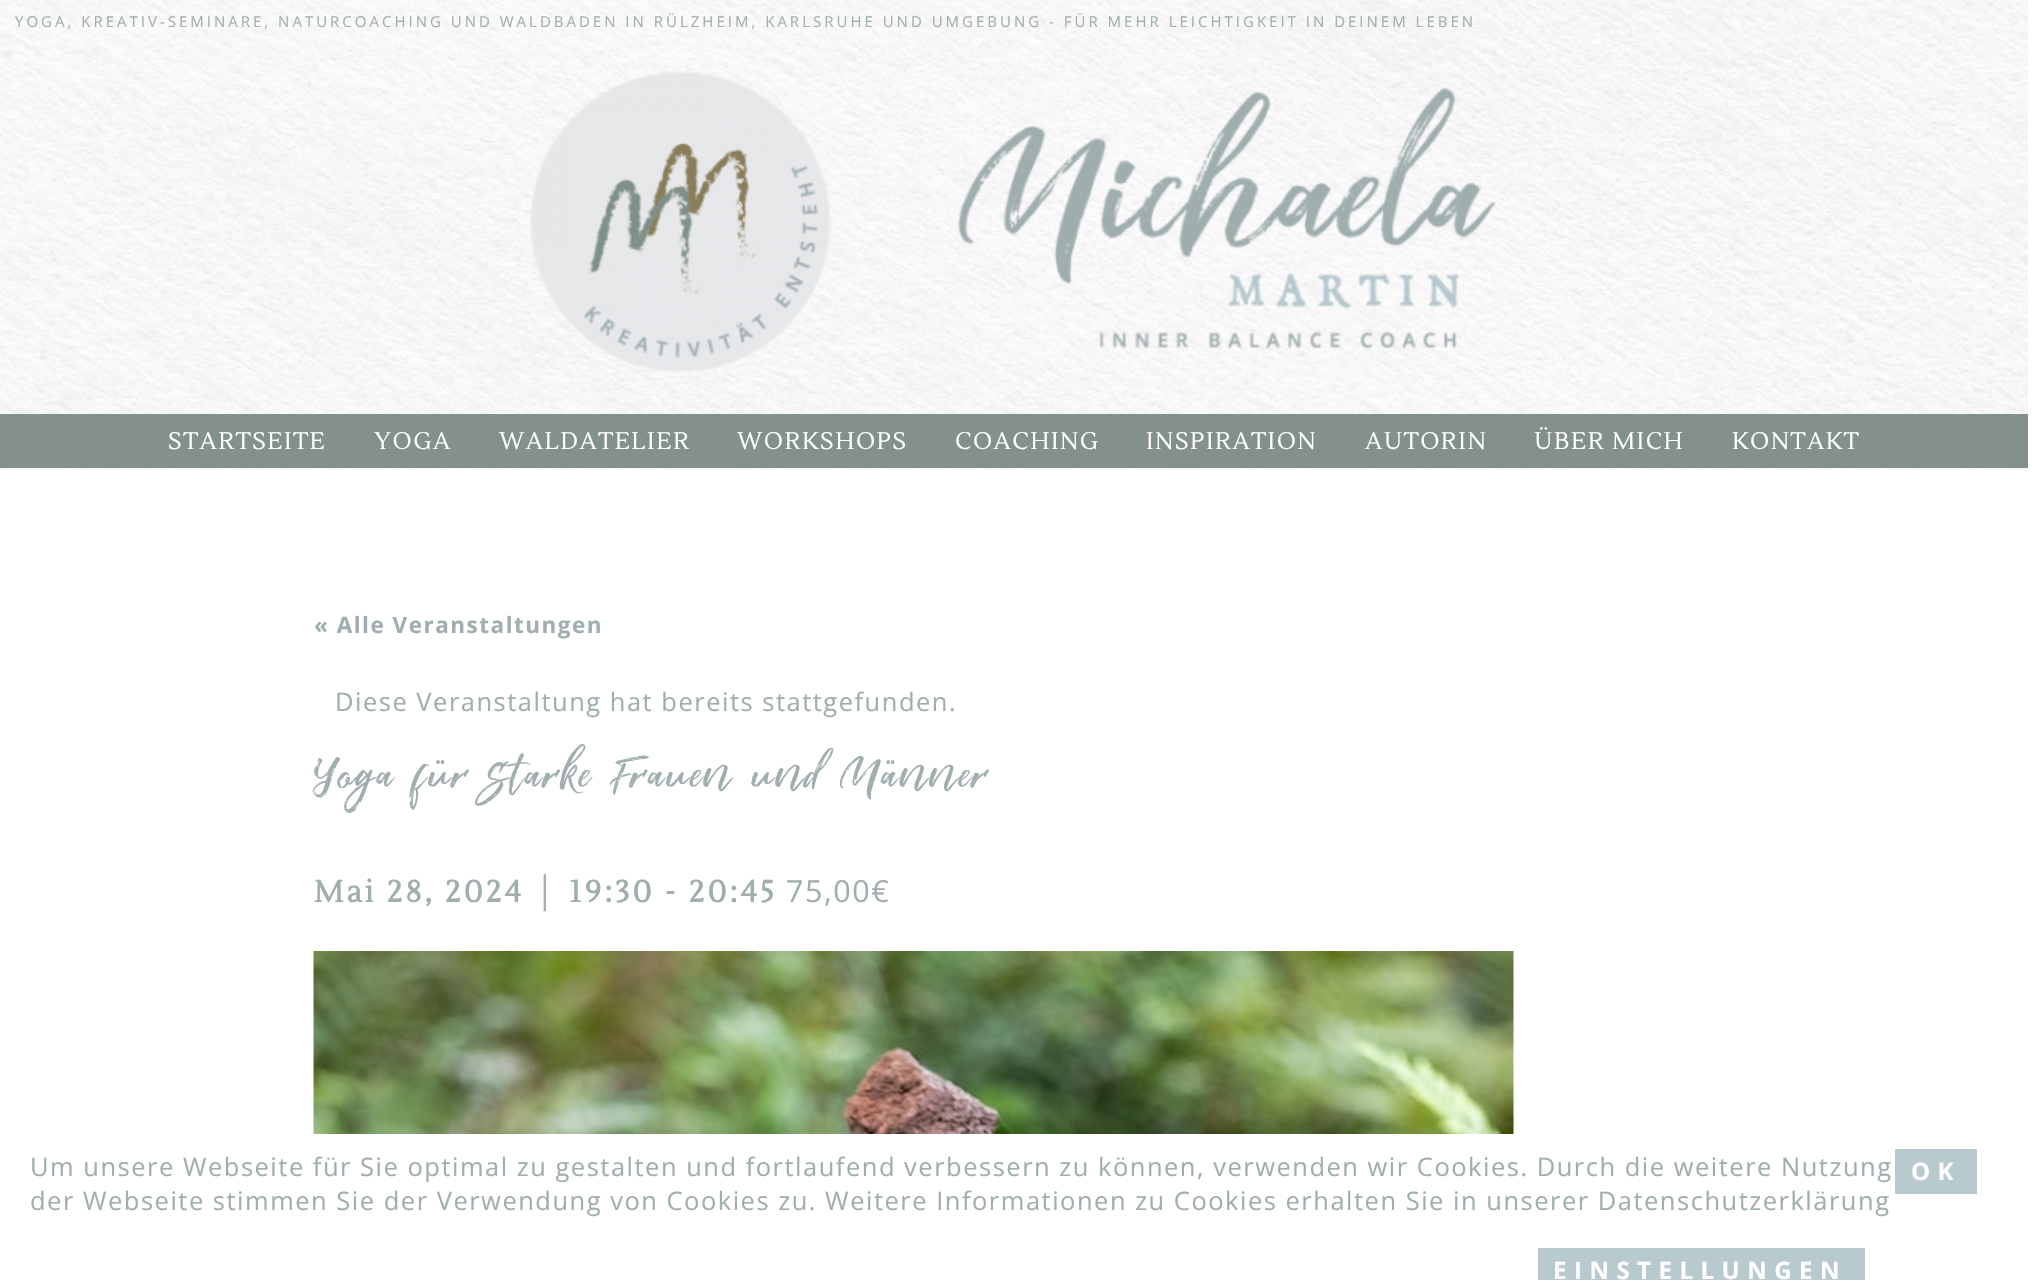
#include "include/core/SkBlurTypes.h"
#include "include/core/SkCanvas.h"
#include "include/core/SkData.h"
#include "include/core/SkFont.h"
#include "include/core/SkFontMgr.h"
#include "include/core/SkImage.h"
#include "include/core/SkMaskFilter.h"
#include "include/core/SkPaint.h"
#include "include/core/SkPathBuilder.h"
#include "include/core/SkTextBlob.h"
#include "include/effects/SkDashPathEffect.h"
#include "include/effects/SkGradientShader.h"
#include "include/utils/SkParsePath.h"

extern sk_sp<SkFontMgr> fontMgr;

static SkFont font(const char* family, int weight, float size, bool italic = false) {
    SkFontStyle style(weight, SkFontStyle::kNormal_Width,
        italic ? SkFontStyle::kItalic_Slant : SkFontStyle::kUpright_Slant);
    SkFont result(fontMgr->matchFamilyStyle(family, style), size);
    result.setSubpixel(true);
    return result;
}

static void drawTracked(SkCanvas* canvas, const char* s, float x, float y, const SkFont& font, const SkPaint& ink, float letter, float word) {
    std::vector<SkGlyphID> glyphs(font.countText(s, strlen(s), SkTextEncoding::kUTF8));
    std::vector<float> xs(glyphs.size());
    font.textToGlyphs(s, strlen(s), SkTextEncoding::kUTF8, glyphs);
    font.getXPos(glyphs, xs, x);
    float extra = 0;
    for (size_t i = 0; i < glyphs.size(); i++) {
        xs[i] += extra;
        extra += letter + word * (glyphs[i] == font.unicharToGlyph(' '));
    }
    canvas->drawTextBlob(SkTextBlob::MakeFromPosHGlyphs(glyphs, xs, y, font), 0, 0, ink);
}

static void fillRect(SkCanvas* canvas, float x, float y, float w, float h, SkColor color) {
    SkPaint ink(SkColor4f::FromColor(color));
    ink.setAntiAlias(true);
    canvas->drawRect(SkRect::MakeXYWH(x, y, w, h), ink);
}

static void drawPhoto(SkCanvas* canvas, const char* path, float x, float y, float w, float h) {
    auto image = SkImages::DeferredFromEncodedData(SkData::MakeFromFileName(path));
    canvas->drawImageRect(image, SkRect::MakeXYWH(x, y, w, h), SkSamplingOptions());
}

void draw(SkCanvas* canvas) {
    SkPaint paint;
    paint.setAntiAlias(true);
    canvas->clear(0xFFFFFFFF);
    drawPhoto(canvas, "assets/img1.png", 0, 0, 2028, 470);
    SkFont font1 = font("Open Sans", 400, 15);
    paint.setColor(0xFFA1AEAF);
    drawTracked(canvas, "YOGA, KREATIV-SEMINARE, NATURCOACHING UND WALDBADEN IN RÜLZHEIM, KARLSRUHE UND UMGEBUNG - FÜR MEHR LEICHTIGKEIT IN DEINEM LEBEN", 15, 27, font1, paint, 3, 0);
    drawPhoto(canvas, "assets/img2.png", 530, 71, 966, 301);
    fillRect(canvas, 0, 414, 2028, 54, 0xFF84918A);
    SkFont font2 = font("Lustria", 400, 24);
    paint.setColor(0xFFFFFFFF);
    drawTracked(canvas, "STARTSEITE", 168, 449, font2, paint, 1.5f, 0);
    drawTracked(canvas, "YOGA", 374, 449, font2, paint, 1.5f, 0);
    drawTracked(canvas, "WALDATELIER", 499, 449, font2, paint, 1.5f, 0);
    drawTracked(canvas, "WORKSHOPS", 737, 449, font2, paint, 1.5f, 0);
    drawTracked(canvas, "COACHING", 955, 449, font2, paint, 1.5f, 0);
    drawTracked(canvas, "INSPIRATION", 1146, 449, font2, paint, 1.5f, 0);
    drawTracked(canvas, "AUTORIN", 1365, 449, font2, paint, 1.5f, 0);
    drawTracked(canvas, "ÜBER MICH", 1534, 449, font2, paint, 1.5f, 0);
    drawTracked(canvas, "KONTAKT", 1732, 449, font2, paint, 1.5f, 0);
    SkFont font3 = font("Open Sans", 700, 22.5f);
    paint.setColor(0xFFA1AEAF);
    drawTracked(canvas, "« Alle Veranstaltungen", 314, 633, font3, paint, 1.5f, 0);
    SkFont font4 = font("Open Sans", 400, 25.5f);
    drawTracked(canvas, "Diese Veranstaltung hat bereits stattgefunden.", 335, 711, font4, paint, 1.5f, 0);
    SkFont font5 = font("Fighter", 400, 43.4f);
    drawTracked(canvas, "Yoga für starke Frauen und Männer", 314, 790, font5, paint, 1.5f, 0);
    SkFont font6 = font("Lustria", 700, 30.5f);
    drawTracked(canvas, "Mai 28, 2024", 314, 902, font6, paint, 3, 0);
    SkFont font7 = font("Liberation Serif", 700, 30.5f);
    drawTracked(canvas, "│", 534, 902, font7, paint, 3, 0);
    drawTracked(canvas, "19:30 - 20:45", 569, 902, font6, paint, 3, 0);
    SkFont font8 = font("Open Sans", 400, 30.5f);
    drawTracked(canvas, "75,00€", 786, 902, font8, paint, 1.5f, 0);
    drawPhoto(canvas, "assets/img3.png", 313, 951, 1201, 183);
    drawTracked(canvas, "Um unsere Webseite für Sie optimal zu gestalten und fortlaufend verbessern zu können, verwenden wir Cookies. Durch die weitere Nutzung", 30, 1176, font4, paint, 1.5f, 0);
    drawTracked(canvas, "der Webseite stimmen Sie der Verwendung von Cookies zu. Weitere Informationen zu Cookies erhalten Sie in unserer Datenschutzerklärung", 30, 1210, font4, paint, 1.5f, 0);
    fillRect(canvas, 1538, 1248, 327, 32, 0xFFB8CACE);
    SkFont font9 = font("Open Sans", 700, 24);
    paint.setColor(0xFFFFFFFF);
    drawTracked(canvas, "EINSTELLUNGEN", 1553, 1279, font9, paint, 7.5f, 0);
    fillRect(canvas, 1895, 1149, 82, 45, 0xFFB8CACE);
    drawTracked(canvas, "OK", 1911, 1180, font9, paint, 7.5f, 0);
}
